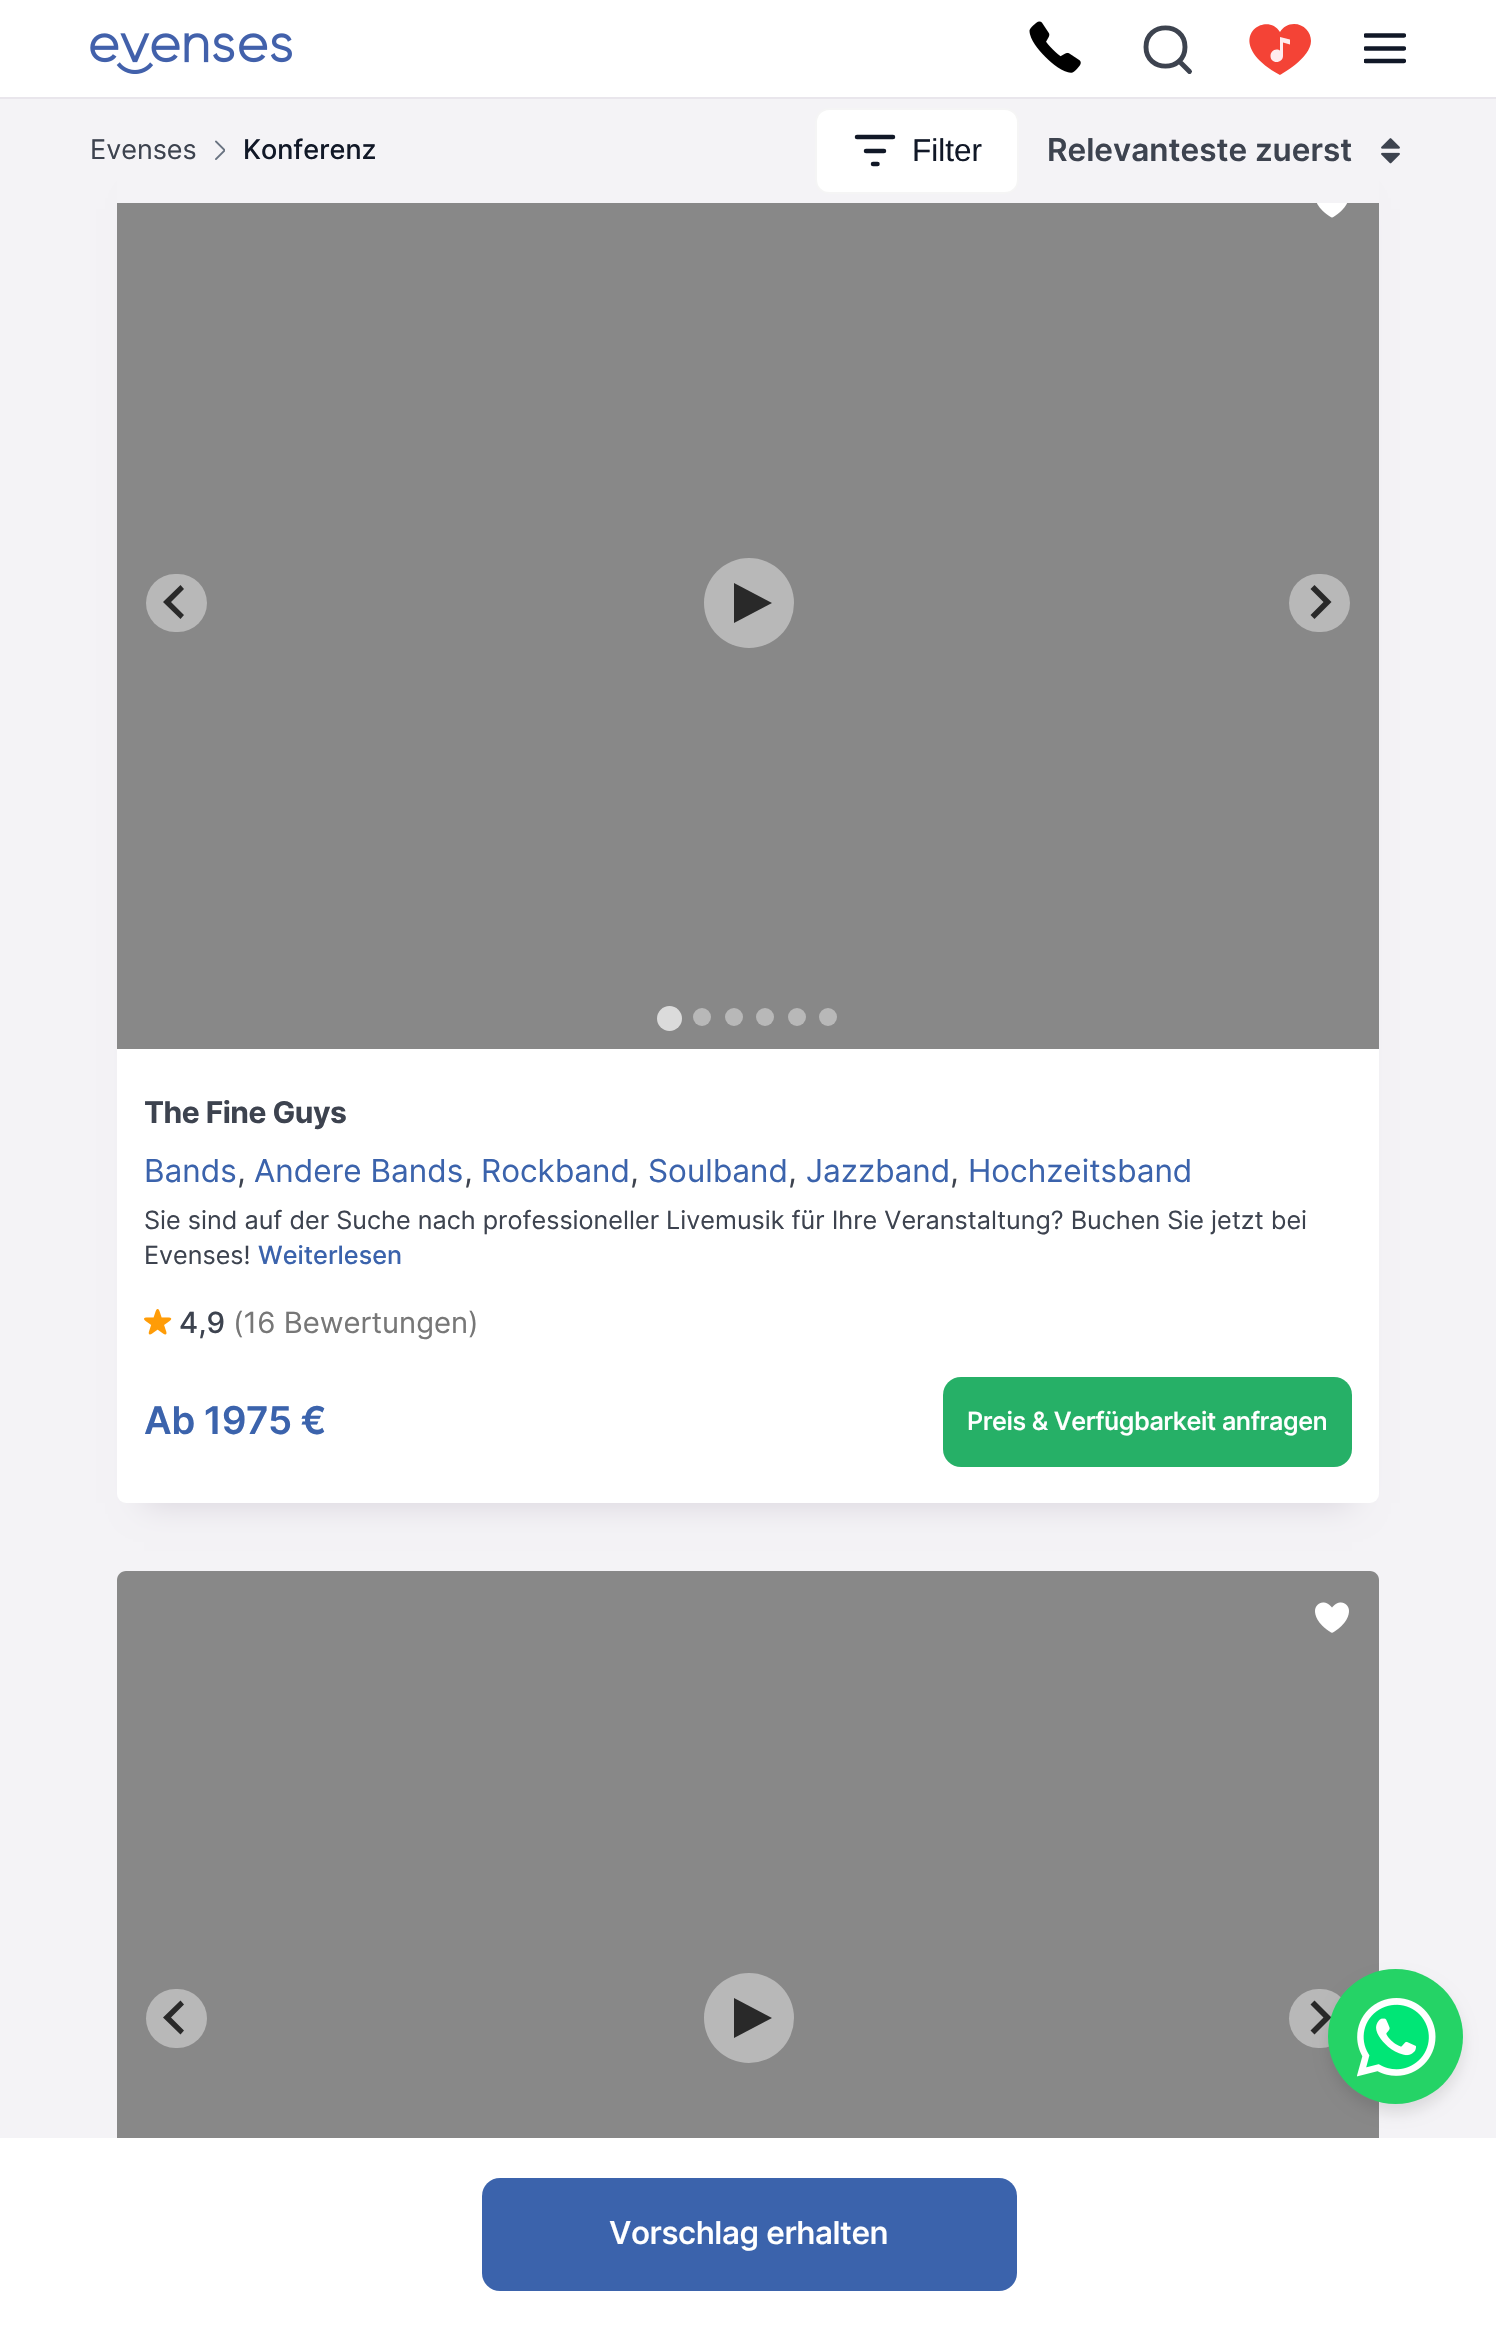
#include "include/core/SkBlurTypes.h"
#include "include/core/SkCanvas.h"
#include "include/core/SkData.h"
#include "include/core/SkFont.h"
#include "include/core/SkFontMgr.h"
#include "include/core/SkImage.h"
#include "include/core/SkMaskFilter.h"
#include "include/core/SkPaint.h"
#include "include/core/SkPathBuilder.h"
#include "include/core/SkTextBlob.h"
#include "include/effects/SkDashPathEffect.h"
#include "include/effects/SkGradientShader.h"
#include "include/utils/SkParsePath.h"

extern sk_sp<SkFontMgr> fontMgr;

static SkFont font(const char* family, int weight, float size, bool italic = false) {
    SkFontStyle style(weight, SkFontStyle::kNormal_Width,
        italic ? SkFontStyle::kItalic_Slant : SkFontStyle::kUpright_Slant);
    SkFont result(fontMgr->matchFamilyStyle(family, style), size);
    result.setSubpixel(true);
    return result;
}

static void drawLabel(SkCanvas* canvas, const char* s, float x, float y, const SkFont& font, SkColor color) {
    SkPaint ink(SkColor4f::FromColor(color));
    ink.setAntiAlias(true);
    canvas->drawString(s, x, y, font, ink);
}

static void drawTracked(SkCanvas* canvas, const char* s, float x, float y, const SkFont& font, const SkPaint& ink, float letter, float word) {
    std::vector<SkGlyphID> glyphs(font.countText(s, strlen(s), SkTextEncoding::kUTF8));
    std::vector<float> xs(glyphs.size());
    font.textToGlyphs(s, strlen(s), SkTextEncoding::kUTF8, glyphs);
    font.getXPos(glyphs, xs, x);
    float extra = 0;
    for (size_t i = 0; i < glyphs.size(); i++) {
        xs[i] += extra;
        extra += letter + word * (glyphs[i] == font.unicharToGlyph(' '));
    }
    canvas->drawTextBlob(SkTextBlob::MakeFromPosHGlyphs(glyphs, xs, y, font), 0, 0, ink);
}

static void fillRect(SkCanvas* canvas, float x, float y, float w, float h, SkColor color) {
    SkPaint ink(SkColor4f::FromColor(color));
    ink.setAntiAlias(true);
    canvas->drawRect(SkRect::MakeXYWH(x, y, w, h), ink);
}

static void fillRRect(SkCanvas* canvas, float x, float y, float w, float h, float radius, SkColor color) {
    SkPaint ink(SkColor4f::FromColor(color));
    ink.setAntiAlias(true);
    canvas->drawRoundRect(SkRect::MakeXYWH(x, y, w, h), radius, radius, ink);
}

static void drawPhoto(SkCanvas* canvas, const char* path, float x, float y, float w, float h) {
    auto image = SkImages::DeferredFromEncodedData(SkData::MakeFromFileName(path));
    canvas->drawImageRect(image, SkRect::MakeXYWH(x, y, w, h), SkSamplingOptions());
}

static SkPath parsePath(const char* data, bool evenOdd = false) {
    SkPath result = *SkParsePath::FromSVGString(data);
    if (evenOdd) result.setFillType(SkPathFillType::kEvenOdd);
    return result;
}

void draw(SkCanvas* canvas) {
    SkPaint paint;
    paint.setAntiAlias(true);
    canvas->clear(0xFFF4F3F6);
    fillRect(canvas, 0, 0, 1496, 97, 0xFFFFFFFF);
    fillRect(canvas, 0, 97, 1496, 2, 0xFFE9E6EC);
    drawPhoto(canvas, "assets/img1.png", 90, 33, 202, 41);
    drawPhoto(canvas, "assets/img2.png", 1029, 21, 52, 52);
    paint.setStroke(true);
    paint.setStrokeWidth(4.9f);
    paint.setStrokeCap(SkPaint::kRound_Cap);
    paint.setStrokeJoin(SkPaint::kRound_Join);
    paint.setColor(0xFF3D434F);
    canvas->drawPath(parsePath("M1189.5 71.5L1179 61M1185 47C1185 72.5 1146 72.5 1146 47C1146 21.5 1185 21.5 1185 47Z"), paint);
    paint.setStroke(false);
    paint.setColor(0xFFF44336);
    canvas->drawPath(parsePath("M1294 24C1288 24 1283 27 1280 32C1266 9 1219 41 1280 75C1280 75 1311 58 1311 41C1311 32 1304 24 1294 24"), paint);
    paint.setColor(0xFFFFEBEE);
    canvas->drawPath(parsePath("M1280 37V50.5C1279.5 50 1278 49.5 1276.5 49.5C1273 49.5 1270.5 52.5 1270.5 56C1270.5 59.5 1273 62 1276.5 62C1280 62 1283 59.5 1283 56V42.5L1290 44.5V39.5Z"), paint);
    canvas->save();
    canvas->clipRect(SkRect::MakeXYWH(1364, 27, 42, 43));
    paint.setStroke(true);
    paint.setStrokeWidth(4.3f);
    paint.setColor(0xFF111827);
    canvas->drawPath(parsePath("M1365.5 48.5H1404M1365.5 35.5H1404M1365.5 61H1404"), paint);
    canvas->restore();
    paint.setStroke(false);
    paint.setColor(0xFFD6D1DA);
    paint.setMaskFilter(SkMaskFilter::MakeBlur(kNormal_SkBlurStyle, 16));
    canvas->drawRect(SkRect::MakeXYWH(144, 209, 1208, 1294), paint);
    paint.setMaskFilter(nullptr);
    fillRRect(canvas, 117, 155, 1262, 1348, 9, 0xFFFFFFFF);
    fillRect(canvas, 117, 155, 1262, 48, 0xFFF4F3F6);
    SkFont font1 = font("Inter", 400, 27);
    drawLabel(canvas, "Evenses", 90, 159, font1, 0xFF3D434F);
    drawPhoto(canvas, "assets/img3.png", 215, 140, 10, 20);
    SkFont font2 = font("Inter", 500, 27);
    drawLabel(canvas, "Konferenz", 243, 159, font2, 0xFF111827);
    paint.setColor(0xFFFFFFFF);
    canvas->drawRoundRect(SkRect::MakeXYWH(816, 109, 202, 84), 13, 13, paint);
    paint.setStroke(true);
    paint.setStrokeWidth(2);
    paint.setStrokeCap(SkPaint::kButt_Cap);
    paint.setStrokeJoin(SkPaint::kMiter_Join);
    paint.setColor(0xFFF5F5F5);
    canvas->drawRoundRect(SkRect::MakeXYWH(816, 109, 202, 84), 13, 13, paint);
    paint.setStrokeWidth(4.5f);
    paint.setStrokeCap(SkPaint::kRound_Cap);
    paint.setColor(0xFF111827);
    canvas->drawPath(parsePath("M857 137H893M866 151H884M873 164H877.5"), paint);
    SkFont font3 = font("Liberation Sans", 400, 31.5f);
    drawLabel(canvas, "Filter", 912, 161, font3, 0xFF111827);
    SkFont font4 = font("Inter", 600, 31.5f);
    drawLabel(canvas, "Relevanteste zuerst", 1047, 161, font4, 0xFF3D434F);
    drawPhoto(canvas, "assets/img4.png", 1381, 138, 19, 26);
    fillRect(canvas, 117, 203, 1262, 846, 0xFF888888);
    drawPhoto(canvas, "assets/img5.png", 1317, 203, 31, 15);
    paint.setStroke(false);
    paint.setColor(0xFFB8B8B8);
    canvas->drawCircle(749, 603, 45, paint);
    paint.setColor(0xFF292929);
    canvas->drawPath(parsePath("M734 623V583L772 603Z"), paint);
    fillRRect(canvas, 146, 574, 61, 58, 29, 0xFFB8B8B8);
    canvas->drawPath(parsePath("M180.5 585L184 589L171 602L184 615L180.5 619L163 602Z"), paint);
    fillRRect(canvas, 1289, 574, 61, 58, 29, 0xFFB8B8B8);
    canvas->drawPath(parsePath("M1314.5 585L1310.5 589L1323.5 602L1310.5 615L1314.5 619L1331.5 602Z"), paint);
    paint.setColor(0xFFDBDBDB);
    canvas->drawCircle(669.5f, 1018.5f, 12.5f, paint);
    paint.setColor(0xFFB8B8B8);
    canvas->drawCircle(702, 1017, 9, paint);
    canvas->drawCircle(734, 1017, 9, paint);
    canvas->drawCircle(765, 1017, 9, paint);
    canvas->drawCircle(797, 1017, 9, paint);
    canvas->drawCircle(828, 1017, 9, paint);
    SkFont font5 = font("Inter", 700, 30);
    paint.setColor(0xFF3D434F);
    drawTracked(canvas, "The Fine Guys", 144, 1123, font5, paint, -0.5f, 0);
    SkFont font6 = font("Inter", 400, 31.5f);
    drawLabel(canvas, "Bands", 144, 1182, font6, 0xFF3B63AC);
    drawLabel(canvas, ",", 237, 1182, font6, 0xFF3D434F);
    drawLabel(canvas, "Andere Bands", 254, 1182, font6, 0xFF3B63AC);
    drawLabel(canvas, ",", 464, 1182, font6, 0xFF3D434F);
    drawLabel(canvas, "Rockband", 481, 1182, font6, 0xFF3B63AC);
    drawLabel(canvas, ",", 630, 1182, font6, 0xFF3D434F);
    drawLabel(canvas, "Soulband", 648, 1182, font6, 0xFF3B63AC);
    drawLabel(canvas, ",", 788, 1182, font6, 0xFF3D434F);
    drawLabel(canvas, "Jazzband", 806, 1182, font6, 0xFF3B63AC);
    drawLabel(canvas, ",", 950, 1182, font6, 0xFF3D434F);
    drawLabel(canvas, "Hochzeitsband", 968, 1182, font6, 0xFF3B63AC);
    SkFont font7 = font("Inter", 400, 25.2f);
    drawLabel(canvas, "Sie sind auf der Suche nach professioneller Livemusik für Ihre Veranstaltung? Buchen Sie jetzt bei", 144, 1229, font7, 0xFF3D434F);
    drawLabel(canvas, "Evenses!", 144, 1264, font7, 0xFF3D434F);
    SkFont font8 = font("Inter", 500, 25.2f);
    drawLabel(canvas, "Weiterlesen", 258, 1264, font8, 0xFF3B63AC);
    drawPhoto(canvas, "assets/img6.png", 144, 1309, 28, 26);
    SkFont font9 = font("Inter", 500, 29.25f);
    drawLabel(canvas, "4,9", 179, 1333, font9, 0xFF3D434F);
    SkFont font10 = font("Inter", 400, 29.25f);
    drawLabel(canvas, "(16 Bewertungen)", 233, 1333, font10, 0xFF777777);
    SkFont font11 = font("Inter", 600, 38.25f);
    paint.setColor(0xFF3B63AC);
    drawTracked(canvas, "Ab 1975 €", 144, 1434, font11, paint, -0.5f, 0);
    fillRRect(canvas, 943, 1377, 409, 90, 18, 0xFF26B067);
    SkFont font12 = font("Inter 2", 500, 25.2f);
    paint.setColor(0xFFFFFFFF);
    drawTracked(canvas, "Preis & Verfügbarkeit anfragen", 967, 1430, font12, paint, -0.45f, 0);
    paint.setColor(0xFF888888);
    canvas->drawPath(parsePath("M126 1571H1370C1375 1571 1379 1575 1379 1580V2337H117V1580C117 1575 121 1571 126 1571Z"), paint);
    drawPhoto(canvas, "assets/img7.png", 1315, 1602, 34, 31);
    paint.setColor(0xFFB8B8B8);
    canvas->drawCircle(749, 2018, 45, paint);
    paint.setColor(0xFF292929);
    canvas->drawPath(parsePath("M734 2038V1998L772 2018Z"), paint);
    fillRRect(canvas, 146, 1989, 61, 59, 29.5f, 0xFFB8B8B8);
    canvas->drawPath(parsePath("M180.5 2000.5L184 2004.5L171 2017.5L184 2030.5L180.5 2034.5L163 2017.5Z"), paint);
    fillRRect(canvas, 1289, 1989, 61, 59, 29.5f, 0xFFB8B8B8);
    canvas->drawPath(parsePath("M1314.5 2000.5L1310.5 2004.5L1323.5 2017.5L1310.5 2030.5L1314.5 2034.5L1331.5 2017.5Z"), paint);
    fillRect(canvas, 0, 2138, 1496, 190, 0xFFFFFFFF);
    fillRRect(canvas, 482, 2178, 535, 113, 18, 0xFF3B63AC);
    SkFont font13 = font("Inter 2", 500, 31.5f);
    paint.setColor(0xFFFFFFFF);
    drawTracked(canvas, "Vorschlag erhalten", 609, 2244, font13, paint, -0.45f, 0);
    paint.setColor(0x1A000000);
    paint.setMaskFilter(SkMaskFilter::MakeBlur(kNormal_SkBlurStyle, 7));
    canvas->drawRoundRect(SkRect::MakeXYWH(1328, 1978, 135, 135), 67.5f, 67.5f, paint);
    paint.setMaskFilter(nullptr);
    paint.setColor(0xFF25D366);
    canvas->drawCircle(1395.5f, 2036.5f, 67.5f, paint);
    drawPhoto(canvas, "assets/img8.png", 1357, 1998, 79, 79);
}
